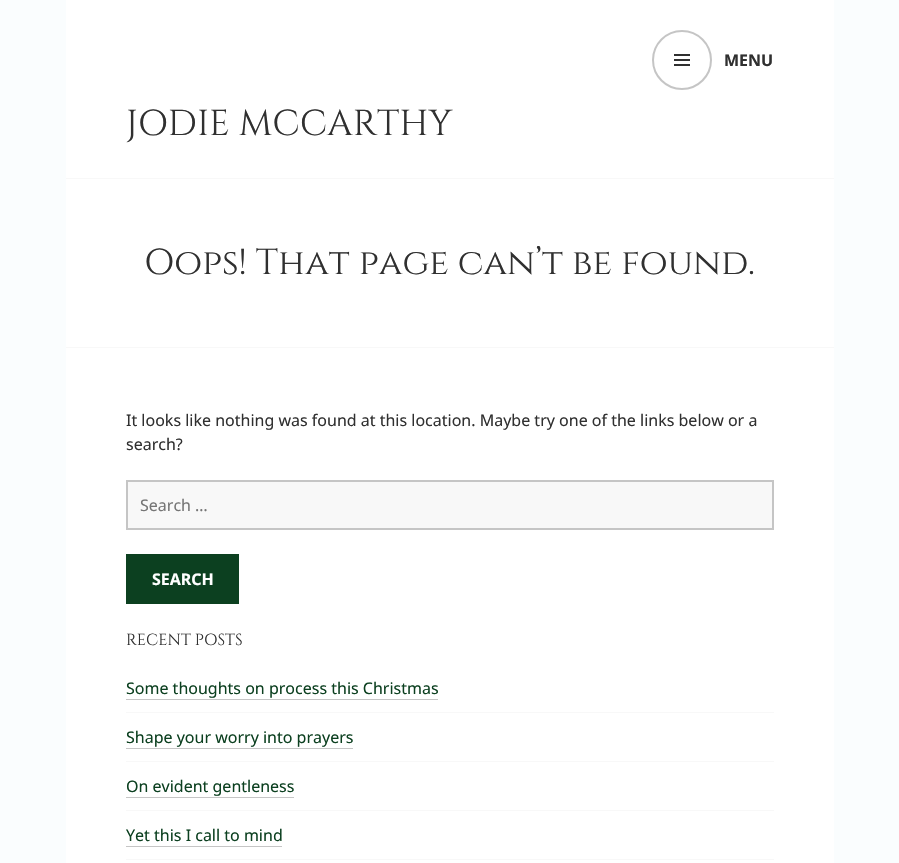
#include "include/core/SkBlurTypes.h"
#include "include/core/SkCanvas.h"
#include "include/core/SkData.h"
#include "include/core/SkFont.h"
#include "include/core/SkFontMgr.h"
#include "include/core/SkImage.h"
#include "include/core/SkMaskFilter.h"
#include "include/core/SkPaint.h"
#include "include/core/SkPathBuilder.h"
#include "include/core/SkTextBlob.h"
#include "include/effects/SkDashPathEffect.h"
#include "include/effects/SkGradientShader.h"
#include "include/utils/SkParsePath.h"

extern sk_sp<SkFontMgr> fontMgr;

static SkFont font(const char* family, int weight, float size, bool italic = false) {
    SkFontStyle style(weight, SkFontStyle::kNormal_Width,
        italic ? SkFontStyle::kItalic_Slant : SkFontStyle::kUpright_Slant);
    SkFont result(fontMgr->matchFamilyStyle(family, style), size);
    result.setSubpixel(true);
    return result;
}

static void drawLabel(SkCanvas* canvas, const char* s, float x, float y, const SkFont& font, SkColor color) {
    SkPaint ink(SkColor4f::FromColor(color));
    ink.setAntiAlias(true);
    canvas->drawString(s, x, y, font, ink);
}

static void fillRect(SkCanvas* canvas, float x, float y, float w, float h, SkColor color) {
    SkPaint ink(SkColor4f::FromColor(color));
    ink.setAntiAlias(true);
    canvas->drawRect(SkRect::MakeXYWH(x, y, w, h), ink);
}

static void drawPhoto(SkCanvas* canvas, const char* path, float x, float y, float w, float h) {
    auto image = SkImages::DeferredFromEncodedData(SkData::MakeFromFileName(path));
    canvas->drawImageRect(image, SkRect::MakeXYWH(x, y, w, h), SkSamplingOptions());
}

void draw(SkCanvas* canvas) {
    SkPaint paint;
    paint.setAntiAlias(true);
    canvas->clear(0xFFFAFDFE);
    fillRect(canvas, 66, 0, 768, 178, 0xFFFFFFFF);
    fillRect(canvas, 66, 178, 768, 1, 0xFFF8F8F8);
    paint.setStroke(true);
    paint.setStrokeWidth(2);
    paint.setColor(0xFFC5C5C5);
    canvas->drawCircle(682, 60, 29, paint);
    drawPhoto(canvas, "assets/img1.png", 674, 54, 16, 12);
    SkFont font1 = font("Noto Sans", 700, 16);
    drawLabel(canvas, "MENU", 724, 66, font1, 0xFF303030);
    SkFont font2 = font("Cinzel", 400, 36);
    drawLabel(canvas, "JODIE MCCARTHY", 126, 135, font2, 0xFF303030);
    fillRect(canvas, 66, 179, 768, 684, 0xFFFFFFFF);
    fillRect(canvas, 66, 347, 768, 1, 0xFFF8F8F8);
    drawLabel(canvas, "Oops! That page can’t be found.", 144, 274, font2, 0xFF303030);
    SkFont font3 = font("Noto Sans", 400, 16);
    drawLabel(canvas, "It looks like nothing was found at this location. Maybe try one of the links below or a", 126, 426, font3, 0xFF303030);
    drawLabel(canvas, "search?", 126, 450, font3, 0xFF303030);
    paint.setStroke(false);
    paint.setColor(0xFFF8F8F8);
    canvas->drawRect(SkRect::MakeXYWH(127, 481, 646, 48), paint);
    paint.setStroke(true);
    paint.setColor(0xFFC5C5C5);
    canvas->drawRect(SkRect::MakeXYWH(127, 481, 646, 48), paint);
    drawLabel(canvas, "Search …", 140, 511, font3, 0xFF757575);
    fillRect(canvas, 126, 554, 113, 50, 0xFF0C4020);
    drawLabel(canvas, "SEARCH", 152, 585, font1, 0xFFFFFFFF);
    SkFont font4 = font("Cinzel", 400, 16);
    drawLabel(canvas, "RECENT POSTS", 126, 645, font4, 0xFF303030);
    drawLabel(canvas, "Some thoughts on process this Christmas", 126, 694, font3, 0xFF0C4020);
    fillRect(canvas, 126, 699, 312, 1, 0xFFC5C5C5);
    fillRect(canvas, 126, 712, 648, 1, 0xFFF8F8F8);
    drawLabel(canvas, "Shape your worry into prayers", 126, 743, font3, 0xFF0C4020);
    fillRect(canvas, 126, 748, 227, 1, 0xFFC5C5C5);
    fillRect(canvas, 126, 761, 648, 1, 0xFFF8F8F8);
    drawLabel(canvas, "On evident gentleness", 126, 792, font3, 0xFF0C4020);
    fillRect(canvas, 126, 797, 168, 1, 0xFFC5C5C5);
    fillRect(canvas, 126, 810, 648, 1, 0xFFF8F8F8);
    drawLabel(canvas, "Yet this I call to mind", 126, 841, font3, 0xFF0C4020);
    fillRect(canvas, 126, 846, 156, 1, 0xFFC5C5C5);
    fillRect(canvas, 126, 859, 648, 1, 0xFFF8F8F8);
}
